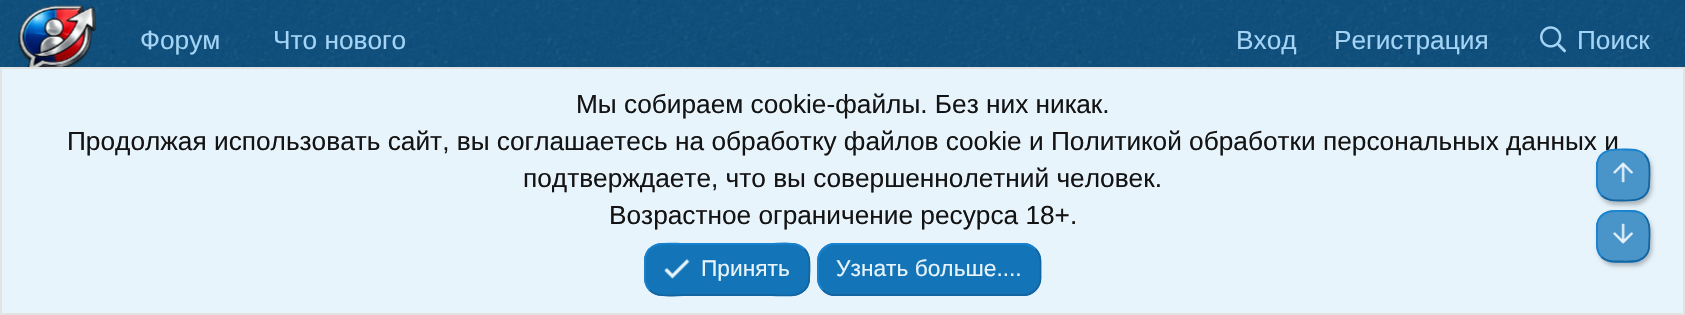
#include "include/core/SkBlurTypes.h"
#include "include/core/SkCanvas.h"
#include "include/core/SkData.h"
#include "include/core/SkFont.h"
#include "include/core/SkFontMgr.h"
#include "include/core/SkImage.h"
#include "include/core/SkMaskFilter.h"
#include "include/core/SkPaint.h"
#include "include/core/SkPathBuilder.h"
#include "include/core/SkTextBlob.h"
#include "include/effects/SkDashPathEffect.h"
#include "include/effects/SkGradientShader.h"
#include "include/utils/SkParsePath.h"

extern sk_sp<SkFontMgr> fontMgr;

static SkFont font(const char* family, int weight, float size, bool italic = false) {
    SkFontStyle style(weight, SkFontStyle::kNormal_Width,
        italic ? SkFontStyle::kItalic_Slant : SkFontStyle::kUpright_Slant);
    SkFont result(fontMgr->matchFamilyStyle(family, style), size);
    result.setSubpixel(true);
    return result;
}

static void drawLabel(SkCanvas* canvas, const char* s, float x, float y, const SkFont& font, SkColor color) {
    SkPaint ink(SkColor4f::FromColor(color));
    ink.setAntiAlias(true);
    canvas->drawString(s, x, y, font, ink);
}

static void fillRRect(SkCanvas* canvas, float x, float y, float w, float h, float radius, SkColor color) {
    SkPaint ink(SkColor4f::FromColor(color));
    ink.setAntiAlias(true);
    canvas->drawRoundRect(SkRect::MakeXYWH(x, y, w, h), radius, radius, ink);
}

static void drawPhoto(SkCanvas* canvas, const char* path, float x, float y, float w, float h) {
    auto image = SkImages::DeferredFromEncodedData(SkData::MakeFromFileName(path));
    canvas->drawImageRect(image, SkRect::MakeXYWH(x, y, w, h), SkSamplingOptions());
}

static SkPath parsePath(const char* data, bool evenOdd = false) {
    SkPath result = *SkParsePath::FromSVGString(data);
    if (evenOdd) result.setFillType(SkPathFillType::kEvenOdd);
    return result;
}

void draw(SkCanvas* canvas) {
    SkPaint paint;
    paint.setAntiAlias(true);
    canvas->clear(0xFF0E4E7C);
    drawPhoto(canvas, "assets/img1.png", 0, 0, 1685, 67);
    drawPhoto(canvas, "assets/img2.png", 18, 5, 79, 62);
    SkFont font1 = font("Liberation Sans", 400, 26.25f);
    drawLabel(canvas, "Форум", 140, 49, font1, 0xFFA3D4F5);
    drawLabel(canvas, "Что нового", 273, 49, font1, 0xFFA3D4F5);
    drawLabel(canvas, "Вход", 1236, 49, font1, 0xFFA3D4F5);
    drawLabel(canvas, "Регистрация", 1334, 49, font1, 0xFFA3D4F5);
    drawPhoto(canvas, "assets/img3.png", 1540, 26, 26, 27);
    drawLabel(canvas, "Поиск", 1577, 49, font1, 0xFFA3D4F5);
    paint.setColor(0xFFE8F4FC);
    canvas->drawRect(SkRect::MakeXYWH(1, 68, 1683, 246), paint);
    paint.setStroke(true);
    paint.setStrokeWidth(2);
    paint.setColor(0xFFE3E3E3);
    canvas->drawRect(SkRect::MakeXYWH(1, 68, 1683, 246), paint);
    drawLabel(canvas, "Мы собираем cookie-файлы. Без них никак.", 576, 113, font1, 0xFF141414);
    drawLabel(canvas, "Продолжая использовать сайт, вы соглашаетесь на обработку файлов cookie и Политикой обработки персональных данных и", 67, 150, font1, 0xFF141414);
    drawLabel(canvas, "подтверждаете, что вы совершеннолетний человек.", 523, 187, font1, 0xFF141414);
    drawLabel(canvas, "Возрастное ограничение ресурса 18+.", 609, 224, font1, 0xFF141414);
    fillRRect(canvas, 644, 243, 166, 53, 18, 0xFF1474B8);
    paint.setStrokeWidth(1.8f);
    paint.setColor(0xFF1265A1);
    canvas->drawPath(parsePath("M804.5 249C810 254.5 809.5 262 809.5 269.5L809 281.5C805.5 299.5 783.5 295 771 295H683.5C674.5 295 658 298 649.5 290"), paint);
    paint.setColor(0xFF1782CF);
    canvas->drawPath(parsePath("M649.5 290C644 284.5 645 277 645 269.5V257.5C649 239.5 670.5 244 683.5 244H771C780 244 796.5 241 804.5 249"), paint);
    drawPhoto(canvas, "assets/img4.png", 664, 259, 26, 20);
    SkFont font2 = font("Liberation Sans", 400, 22.75f);
    drawLabel(canvas, "Принять", 701, 276, font2, 0xFFE8F4FC);
    fillRRect(canvas, 817, 243, 224, 53, 18, 0xFF1474B8);
    paint.setColor(0xFF1265A1);
    canvas->drawPath(parsePath("M1035.5 249C1038.5 252 1040.5 256.5 1040.5 261V278C1040.5 282.5 1038.5 287 1035.5 290C1032.5 293 1028 295 1024 295H835C830.5 295 826 293 823 290"), paint);
    paint.setColor(0xFF1782CF);
    canvas->drawPath(parsePath("M823 290C820 287 818 282.5 818 278V261C818 256.5 820 252 823 249C826 246 830.5 244 835 244H1024C1028 244 1032.5 246 1035.5 249"), paint);
    drawLabel(canvas, "Узнать больше....", 836, 276, font2, 0xFFE8F4FC);
    canvas->save();
    canvas->clipPath(parsePath("M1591 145H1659V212H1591ZM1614 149H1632C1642 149 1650 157 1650 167V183C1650 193 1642 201 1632 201H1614C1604 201 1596 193 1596 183V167C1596 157 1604 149 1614 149Z", true), true);
    paint.setStroke(false);
    paint.setColor(0x40000000);
    paint.setMaskFilter(SkMaskFilter::MakeBlur(kNormal_SkBlurStyle, 2));
    canvas->drawRoundRect(SkRect::MakeXYWH(1598, 152, 54, 53), 18, 18, paint);
    paint.setMaskFilter(nullptr);
    canvas->restore();
    fillRRect(canvas, 1596, 149, 54, 52, 18, 0xBF1474B8);
    paint.setStroke(true);
    paint.setColor(0xFF1265A1);
    canvas->drawPath(parsePath("M1644.5 154.5C1650 160 1649.5 167.5 1649.5 175L1649 187C1646 202 1631.5 200.5 1620 200.5C1613 200.5 1607 200.5 1601.5 195.5"), paint);
    paint.setColor(0xFF1782CF);
    canvas->drawPath(parsePath("M1601.5 195.5C1596 190 1597 182.5 1597 175V163C1600 148 1614.5 149.5 1626.5 149.5C1633 149.5 1639.5 149.5 1644.5 154.5"), paint);
    drawPhoto(canvas, "assets/img5.png", 1612, 162, 22, 21);
    canvas->save();
    canvas->clipPath(parsePath("M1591 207H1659V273H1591ZM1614 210H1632C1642 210 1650 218 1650 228V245C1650 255 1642 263 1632 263H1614C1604 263 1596 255 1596 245V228C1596 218 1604 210 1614 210Z", true), true);
    paint.setStroke(false);
    paint.setColor(0x40000000);
    paint.setMaskFilter(SkMaskFilter::MakeBlur(kNormal_SkBlurStyle, 2));
    canvas->drawRoundRect(SkRect::MakeXYWH(1598, 214, 54, 52), 18, 18, paint);
    paint.setMaskFilter(nullptr);
    canvas->restore();
    fillRRect(canvas, 1596, 210, 54, 53, 18, 0xBF1474B8);
    paint.setStroke(true);
    paint.setColor(0xFF1265A1);
    canvas->drawPath(parsePath("M1644.5 215.5C1650 221.5 1649.5 229 1649.5 236L1649 248.5C1646 263 1631.5 261.5 1620 261.5C1613 261.5 1607 262 1601.5 257"), paint);
    paint.setColor(0xFF1782CF);
    canvas->drawPath(parsePath("M1601.5 257C1596 251 1597 243.5 1597 236V224C1600 209.5 1614.5 211 1626.5 211C1633 211 1639.5 210.5 1644.5 215.5"), paint);
    drawPhoto(canvas, "assets/img6.png", 1612, 223, 22, 21);
}
